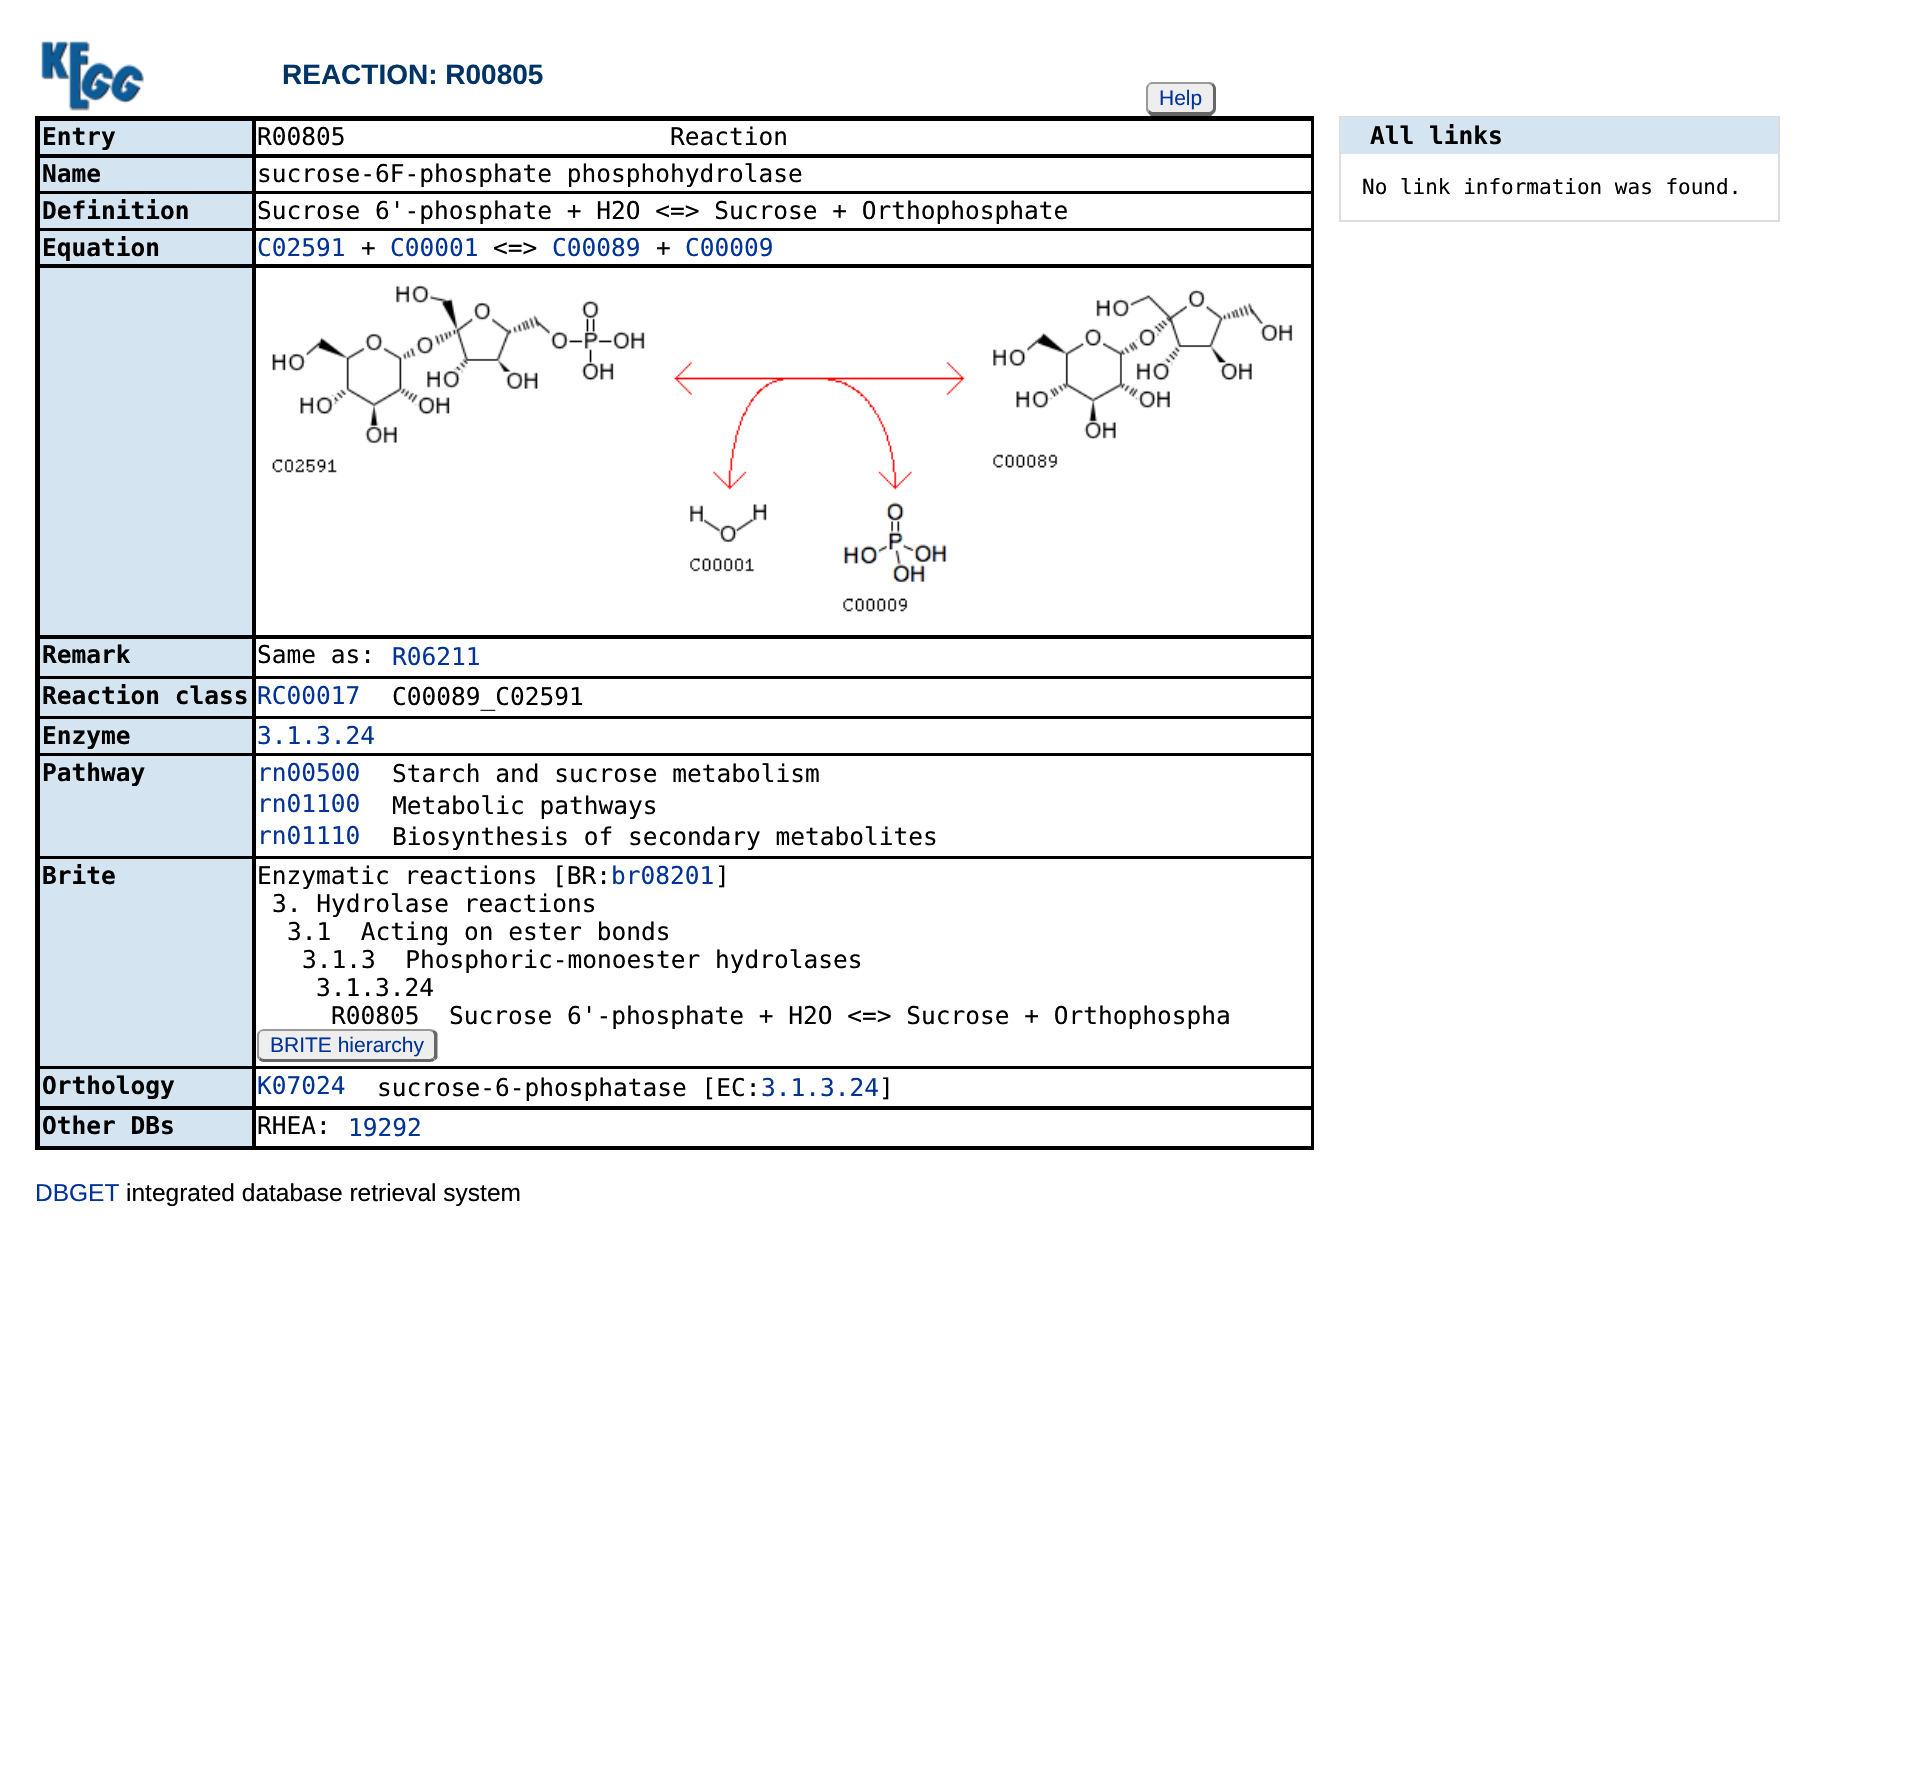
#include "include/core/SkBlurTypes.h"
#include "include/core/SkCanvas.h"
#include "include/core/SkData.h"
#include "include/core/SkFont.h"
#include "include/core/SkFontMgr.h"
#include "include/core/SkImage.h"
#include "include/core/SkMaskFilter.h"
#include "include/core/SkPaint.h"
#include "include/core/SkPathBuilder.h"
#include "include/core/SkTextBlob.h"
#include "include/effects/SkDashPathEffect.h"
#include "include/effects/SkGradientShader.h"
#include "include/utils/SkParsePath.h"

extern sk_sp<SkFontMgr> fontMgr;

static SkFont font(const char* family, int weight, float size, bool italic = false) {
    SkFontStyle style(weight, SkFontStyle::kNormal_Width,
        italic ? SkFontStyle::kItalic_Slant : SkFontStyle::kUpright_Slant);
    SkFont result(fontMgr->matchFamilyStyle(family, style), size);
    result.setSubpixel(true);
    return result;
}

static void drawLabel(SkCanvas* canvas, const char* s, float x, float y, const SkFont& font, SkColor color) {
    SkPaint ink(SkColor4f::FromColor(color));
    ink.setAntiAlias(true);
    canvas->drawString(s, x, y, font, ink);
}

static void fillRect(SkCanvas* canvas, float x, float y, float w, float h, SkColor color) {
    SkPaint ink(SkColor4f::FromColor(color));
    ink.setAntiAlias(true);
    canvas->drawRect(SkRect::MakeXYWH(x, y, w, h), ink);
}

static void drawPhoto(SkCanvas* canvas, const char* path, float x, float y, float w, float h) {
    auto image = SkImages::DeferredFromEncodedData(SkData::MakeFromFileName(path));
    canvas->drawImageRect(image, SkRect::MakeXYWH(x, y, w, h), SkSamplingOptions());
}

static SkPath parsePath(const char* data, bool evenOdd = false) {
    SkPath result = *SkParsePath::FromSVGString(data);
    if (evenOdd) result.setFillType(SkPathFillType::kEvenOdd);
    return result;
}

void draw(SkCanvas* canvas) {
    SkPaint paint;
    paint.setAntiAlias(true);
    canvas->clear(0xFFFFFFFF);
    drawPhoto(canvas, "assets/img1.png", 41, 41, 103, 70);
    SkFont font1 = font("Liberation Sans", 700, 28);
    drawLabel(canvas, "REACTION: R00805", 282, 84, font1, 0xFF003366);
    paint.setColor(0xFFEEEEEE);
    canvas->drawPath(parsePath("M1153 84H1209C1211 84 1213 86 1213 89V108C1213 110 1211 112 1209 112H1153C1150 112 1148 110 1148 108V89C1148 86 1150 84 1153 84Z"), paint);
    paint.setColor(0xFF999999);
    canvas->drawPath(parsePath("M1153 84C1152 84 1150 84 1149 85L1148 84L1151 82H1211L1214 84L1211 85L1209 84Z"), paint);
    paint.setColor(0xFF666666);
    canvas->drawPath(parsePath("M1213.5 83.5C1215 85 1216 87 1216 89V108C1216 110 1215.5 112 1214 113.5L1211.5 111C1212.5 110 1213 109 1213 108V89C1213 87 1212 85.5 1211 85Z"), paint);
    canvas->drawPath(parsePath("M1151 116L1148 113L1149 110L1152 112H1209L1212 111L1214 113L1211 116Z"), paint);
    paint.setColor(0xFF999999);
    canvas->drawPath(parsePath("M1146 87C1146.5 86 1147 85 1148 84L1149.5 85.5C1148.5 86 1148 87.5 1148 89V108C1148 109 1148.5 109.5 1149 110L1147.5 113L1146 110Z"), paint);
    SkFont font2 = font("Liberation Sans", 400, 21);
    drawLabel(canvas, "Help", 1159, 105, font2, 0xFF003399);
    fillRect(canvas, 35, 116, 1279, 1034, 0xFF000000);
    fillRect(canvas, 40, 121, 212, 33, 0xFFD4E4F0);
    SkFont font3 = font("DejaVu Sans Mono", 700, 24.5f);
    drawLabel(canvas, "Entry", 42, 145, font3, 0xFF000000);
    fillRect(canvas, 256, 121, 1055, 33, 0xFFFFFFFF);
    SkFont font4 = font("DejaVu Sans Mono", 400, 24.5f);
    drawLabel(canvas, "R00805                      Reaction", 257, 145, font4, 0xFF000000);
    fillRect(canvas, 40, 158, 212, 33, 0xFFD4E4F0);
    drawLabel(canvas, "Name", 42, 182, font3, 0xFF000000);
    fillRect(canvas, 256, 158, 1055, 33, 0xFFFFFFFF);
    canvas->save();
    canvas->clipRect(SkRect::MakeXYWH(257, 159, 972, 28));
    drawLabel(canvas, "sucrose-6F-phosphate phosphohydrolase", 257, 182, font4, 0xFF000000);
    canvas->restore();
    fillRect(canvas, 40, 194, 212, 34, 0xFFD4E4F0);
    drawLabel(canvas, "Definition", 42, 219, font3, 0xFF000000);
    fillRect(canvas, 256, 194, 1055, 34, 0xFFFFFFFF);
    canvas->save();
    canvas->clipRect(SkRect::MakeXYWH(257, 196, 972, 28));
    drawLabel(canvas, "Sucrose 6'-phosphate + H2O <=> Sucrose + Orthophosphate", 257, 219, font4, 0xFF000000);
    canvas->restore();
    fillRect(canvas, 40, 231, 212, 33, 0xFFD4E4F0);
    drawLabel(canvas, "Equation", 42, 256, font3, 0xFF000000);
    fillRect(canvas, 256, 231, 1055, 33, 0xFFFFFFFF);
    drawLabel(canvas, "C02591", 257, 256, font4, 0xFF003399);
    drawLabel(canvas, "+", 361, 256, font4, 0xFF000000);
    drawLabel(canvas, "C00001", 390, 256, font4, 0xFF003399);
    drawLabel(canvas, "<=>", 493, 256, font4, 0xFF000000);
    drawLabel(canvas, "C00089", 552, 256, font4, 0xFF003399);
    drawLabel(canvas, "+", 656, 256, font4, 0xFF000000);
    drawLabel(canvas, "C00009", 685, 256, font4, 0xFF003399);
    fillRect(canvas, 40, 268, 212, 367, 0xFFD4E4F0);
    fillRect(canvas, 256, 268, 1055, 367, 0xFFFFFFFF);
    drawPhoto(canvas, "assets/img2.png", 272, 284, 1021, 328);
    fillRect(canvas, 40, 639, 212, 37, 0xFFD4E4F0);
    drawLabel(canvas, "Remark", 42, 663, font3, 0xFF000000);
    fillRect(canvas, 256, 639, 1055, 37, 0xFFFFFFFF);
    drawLabel(canvas, "Same as:", 257, 663, font4, 0xFF000000);
    drawLabel(canvas, "R06211", 392, 665, font4, 0xFF003399);
    fillRect(canvas, 40, 679, 212, 37, 0xFFD4E4F0);
    drawLabel(canvas, "Reaction class", 42, 704, font3, 0xFF000000);
    fillRect(canvas, 256, 679, 1055, 37, 0xFFFFFFFF);
    drawLabel(canvas, "RC00017", 257, 704, font4, 0xFF003399);
    drawLabel(canvas, "C00089_C02591", 392, 705, font4, 0xFF000000);
    fillRect(canvas, 40, 719, 212, 34, 0xFFD4E4F0);
    drawLabel(canvas, "Enzyme", 42, 744, font3, 0xFF000000);
    fillRect(canvas, 256, 719, 1055, 34, 0xFFFFFFFF);
    drawLabel(canvas, "3.1.3.24", 257, 744, font4, 0xFF003399);
    fillRect(canvas, 40, 756, 212, 100, 0xFFD4E4F0);
    drawLabel(canvas, "Pathway", 42, 781, font3, 0xFF000000);
    fillRect(canvas, 256, 756, 1055, 100, 0xFFFFFFFF);
    drawLabel(canvas, "rn00500", 257, 781, font4, 0xFF003399);
    drawLabel(canvas, "Starch and sucrose metabolism", 392, 782, font4, 0xFF000000);
    drawLabel(canvas, "rn01100", 257, 812, font4, 0xFF003399);
    drawLabel(canvas, "Metabolic pathways", 392, 814, font4, 0xFF000000);
    drawLabel(canvas, "rn01110", 257, 844, font4, 0xFF003399);
    drawLabel(canvas, "Biosynthesis of secondary metabolites", 392, 845, font4, 0xFF000000);
    fillRect(canvas, 40, 859, 212, 207, 0xFFD4E4F0);
    drawLabel(canvas, "Brite", 42, 884, font3, 0xFF000000);
    fillRect(canvas, 256, 859, 1055, 207, 0xFFFFFFFF);
    drawLabel(canvas, "Enzymatic reactions [BR:", 257, 884, font4, 0xFF000000);
    drawLabel(canvas, "br08201", 611, 884, font4, 0xFF003399);
    drawLabel(canvas, "]", 715, 884, font4, 0xFF000000);
    drawLabel(canvas, "3. Hydrolase reactions", 272, 912, font4, 0xFF000000);
    drawLabel(canvas, "3.1  Acting on ester bonds", 287, 940, font4, 0xFF000000);
    drawLabel(canvas, "3.1.3  Phosphoric-monoester hydrolases", 302, 968, font4, 0xFF000000);
    drawLabel(canvas, "3.1.3.24", 316, 996, font4, 0xFF000000);
    canvas->save();
    canvas->clipRect(SkRect::MakeXYWH(257, 861, 972, 168));
    drawLabel(canvas, "R00805  Sucrose 6'-phosphate + H2O <=> Sucrose + Orthophospha", 331, 1024, font4, 0xFF000000);
    canvas->restore();
    paint.setColor(0xFFEEEEEE);
    canvas->drawPath(parsePath("M264 1031H430C432 1031 434 1033 434 1036V1055C434 1057 432 1059 430 1059H264C261 1059 259 1057 259 1055V1036C259 1033 261 1031 264 1031Z"), paint);
    paint.setColor(0xFF999999);
    canvas->drawPath(parsePath("M264 1029C262 1029 260 1030 259 1031L261 1032C261 1031 263 1031 264 1031H430L432 1032L435 1030C433 1030 432 1029 430 1029Z"), paint);
    paint.setColor(0xFF666666);
    canvas->drawPath(parsePath("M437.5 1057.5C437 1058.5 436.5 1059.5 435.5 1060L433 1057.5C433.5 1057 434 1056 434 1055V1036C434 1034 433 1032.5 432 1031.5L434.5 1030.5C436 1031 437 1032.5 437.5 1033.5Z"), paint);
    canvas->drawPath(parsePath("M435 1060C434 1061 432 1062 430 1062H264C262 1062 260 1061 259 1060L260 1057C261 1058 262 1059 264 1059H430L433 1058Z"), paint);
    paint.setColor(0xFF999999);
    canvas->drawPath(parsePath("M257 1034C257.5 1033 258 1031.5 259 1031L260.5 1032.5C259.5 1033 259 1034.5 259 1036V1055C259 1056 259.5 1056.5 260 1057L258.5 1059.5C258 1059 257.5 1058 257 1057Z"), paint);
    drawLabel(canvas, "BRITE hierarchy", 270, 1052, font2, 0xFF003399);
    fillRect(canvas, 40, 1069, 212, 37, 0xFFD4E4F0);
    drawLabel(canvas, "Orthology", 42, 1094, font3, 0xFF000000);
    fillRect(canvas, 256, 1069, 1055, 37, 0xFFFFFFFF);
    drawLabel(canvas, "K07024", 257, 1094, font4, 0xFF003399);
    drawLabel(canvas, "sucrose-6-phosphatase [EC:", 377, 1096, font4, 0xFF000000);
    drawLabel(canvas, "3.1.3.24", 761, 1096, font4, 0xFF003399);
    drawLabel(canvas, "]", 879, 1096, font4, 0xFF000000);
    fillRect(canvas, 40, 1110, 212, 36, 0xFFD4E4F0);
    drawLabel(canvas, "Other DBs", 42, 1134, font3, 0xFF000000);
    fillRect(canvas, 256, 1110, 1055, 36, 0xFFFFFFFF);
    drawLabel(canvas, "RHEA:", 257, 1134, font4, 0xFF000000);
    drawLabel(canvas, "19292", 348, 1136, font4, 0xFF003399);
    paint.setStroke(true);
    paint.setStrokeWidth(2);
    paint.setColor(0xFFDDDDDD);
    canvas->drawRect(SkRect::MakeXYWH(1340, 117, 439, 104), paint);
    fillRect(canvas, 1341, 117, 437, 37, 0xFFD4E4F0);
    drawLabel(canvas, "All links", 1370, 144, font3, 0xFF000000);
    SkFont font5 = font("DejaVu Sans Mono", 400, 21);
    drawLabel(canvas, "No link information was found.", 1362, 194, font5, 0xFF000000);
    SkFont font6 = font("Liberation Sans", 400, 24.5f);
    drawLabel(canvas, "DBGET", 35, 1201, font6, 0xFF003399);
    drawLabel(canvas, "integrated database retrieval system", 126, 1201, font6, 0xFF000000);
}
